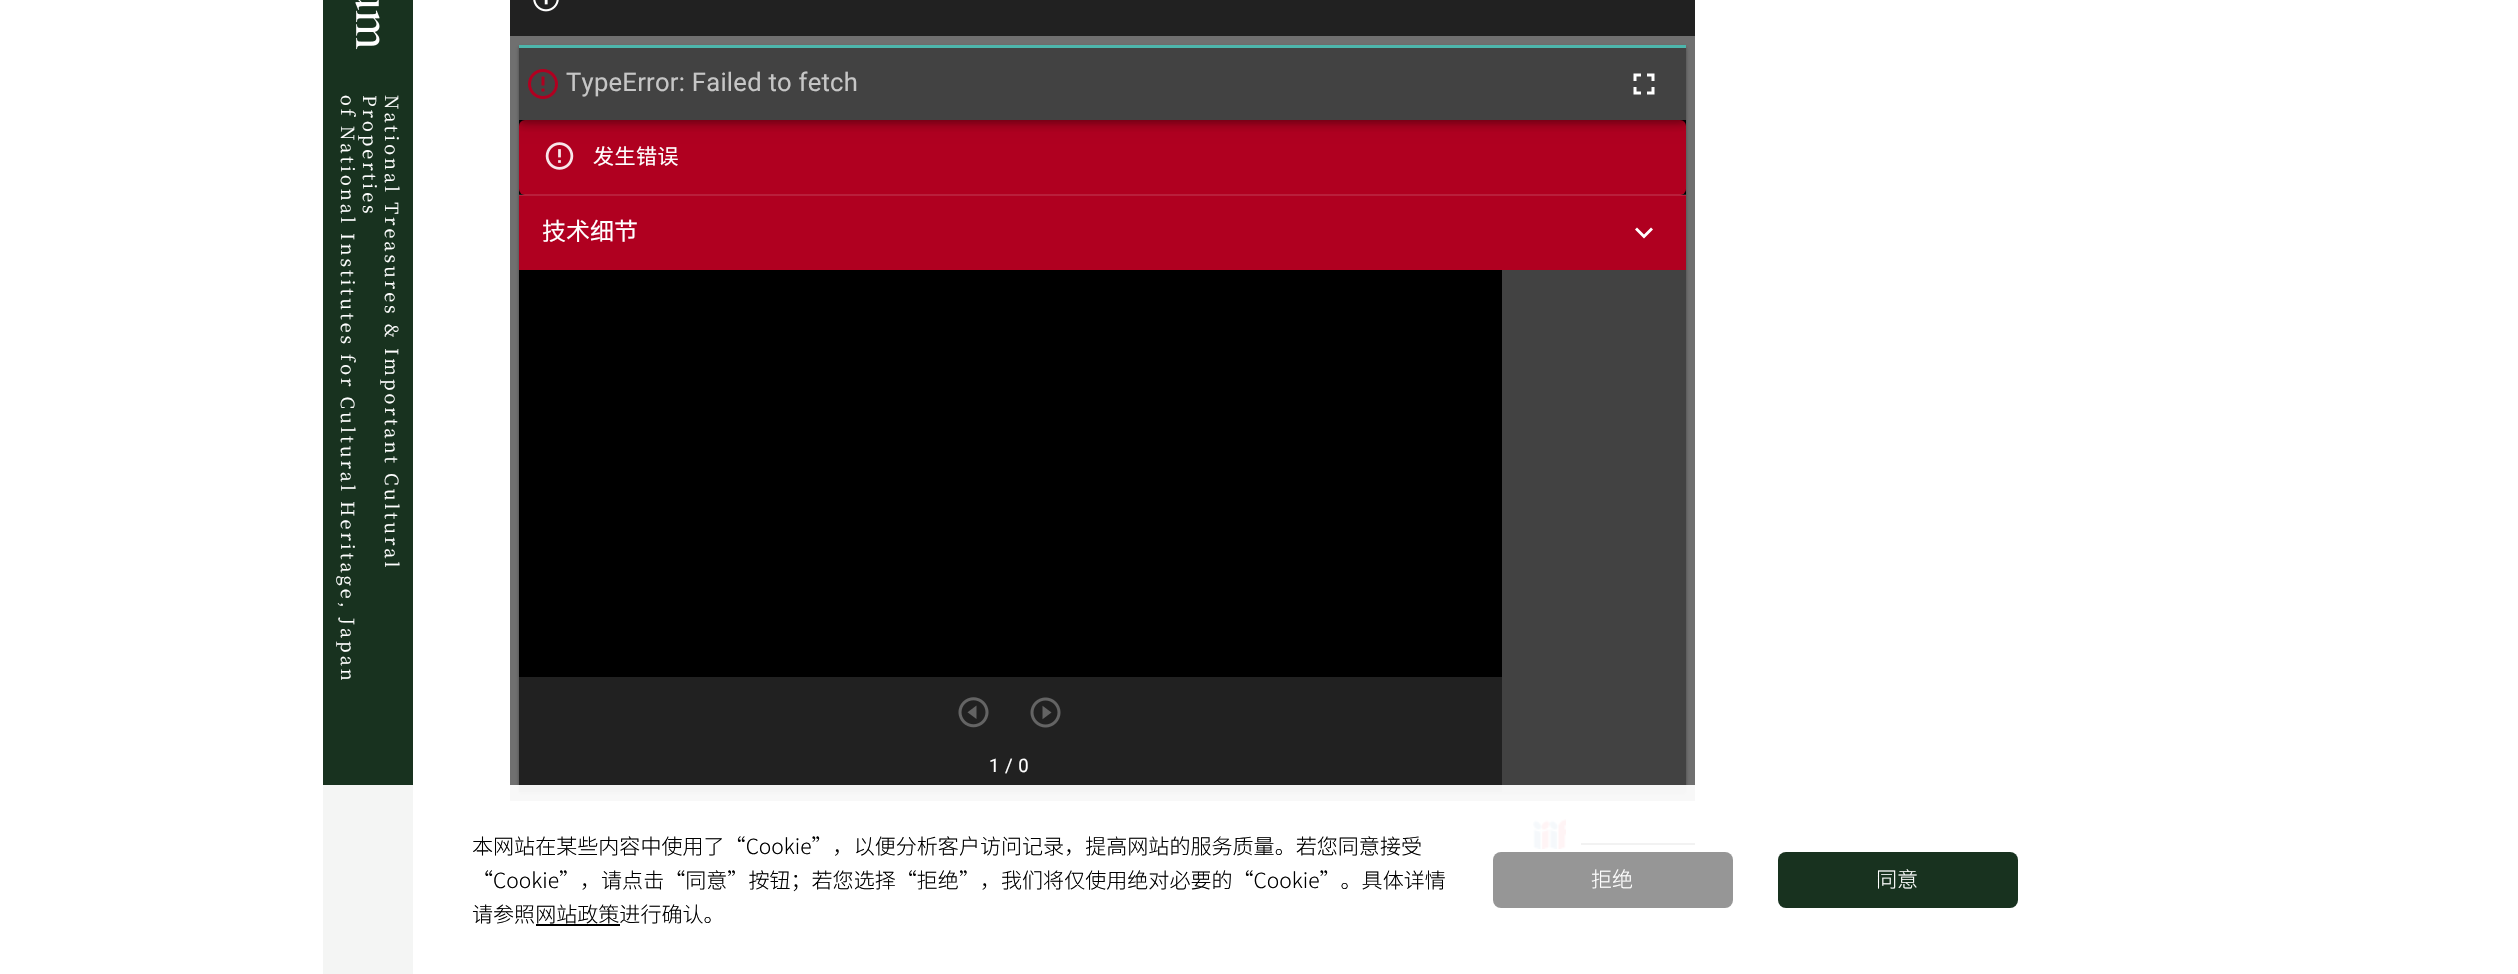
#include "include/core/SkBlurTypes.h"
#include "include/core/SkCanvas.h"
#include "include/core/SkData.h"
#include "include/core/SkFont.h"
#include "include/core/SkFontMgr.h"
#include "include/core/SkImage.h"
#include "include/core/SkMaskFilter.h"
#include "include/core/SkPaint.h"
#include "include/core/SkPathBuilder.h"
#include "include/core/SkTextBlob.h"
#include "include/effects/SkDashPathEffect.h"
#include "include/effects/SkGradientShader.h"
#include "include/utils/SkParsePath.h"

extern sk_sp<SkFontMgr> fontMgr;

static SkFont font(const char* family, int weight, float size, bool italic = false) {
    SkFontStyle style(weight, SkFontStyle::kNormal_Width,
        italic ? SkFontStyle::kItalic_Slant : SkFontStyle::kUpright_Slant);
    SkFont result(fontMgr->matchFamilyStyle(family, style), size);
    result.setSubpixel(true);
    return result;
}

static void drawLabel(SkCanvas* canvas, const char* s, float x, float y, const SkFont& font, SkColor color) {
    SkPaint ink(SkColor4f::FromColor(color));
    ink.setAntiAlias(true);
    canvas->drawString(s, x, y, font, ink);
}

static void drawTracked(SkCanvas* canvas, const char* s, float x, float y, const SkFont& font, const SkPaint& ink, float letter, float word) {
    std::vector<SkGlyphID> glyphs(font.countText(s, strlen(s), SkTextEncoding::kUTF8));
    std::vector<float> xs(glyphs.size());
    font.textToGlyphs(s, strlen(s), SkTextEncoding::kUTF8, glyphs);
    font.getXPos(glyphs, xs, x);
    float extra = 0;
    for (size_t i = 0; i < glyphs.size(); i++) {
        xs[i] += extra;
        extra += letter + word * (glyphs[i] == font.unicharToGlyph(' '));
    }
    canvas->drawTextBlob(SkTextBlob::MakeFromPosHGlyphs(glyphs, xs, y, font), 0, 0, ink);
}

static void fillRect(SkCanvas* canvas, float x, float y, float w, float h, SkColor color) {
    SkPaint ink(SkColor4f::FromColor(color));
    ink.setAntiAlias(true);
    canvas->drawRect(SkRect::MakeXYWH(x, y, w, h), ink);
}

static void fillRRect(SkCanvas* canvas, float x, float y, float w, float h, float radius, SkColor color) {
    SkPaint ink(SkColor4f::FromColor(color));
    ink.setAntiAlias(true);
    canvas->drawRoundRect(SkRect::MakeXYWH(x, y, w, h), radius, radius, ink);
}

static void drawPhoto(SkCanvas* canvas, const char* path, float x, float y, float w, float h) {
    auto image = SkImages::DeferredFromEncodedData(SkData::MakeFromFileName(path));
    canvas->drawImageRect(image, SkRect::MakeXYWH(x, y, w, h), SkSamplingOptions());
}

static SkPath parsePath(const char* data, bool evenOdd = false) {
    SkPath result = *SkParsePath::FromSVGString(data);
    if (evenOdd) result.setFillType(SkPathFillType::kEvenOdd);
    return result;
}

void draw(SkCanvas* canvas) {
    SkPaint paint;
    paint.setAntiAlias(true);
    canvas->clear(0xFFFFFFFF);
    fillRect(canvas, 323, 0, 90, 974, 0xFF18321F);
    drawPhoto(canvas, "assets/img1.png", 355, 0, 25, 50);
    SkFont font1 = font("Noto Serif JP", 400, 18.1f);
    paint.setColor(0xFFFFFFFF);
    canvas->save();
    canvas->rotate(90, 341, 95);
    drawTracked(canvas, "of National Institutes for Cultural Heritage, Japan", 341, 95, font1, paint, 3, -0.5f);
    canvas->restore();
    canvas->save();
    canvas->rotate(90, 363, 95);
    drawTracked(canvas, "Properties", 363, 95, font1, paint, 3, 0);
    canvas->restore();
    canvas->save();
    canvas->rotate(90, 385, 95);
    drawTracked(canvas, "National Treasures & Important Cultural", 385, 95, font1, paint, 3, -0.5f);
    canvas->restore();
    fillRect(canvas, 510, 0, 1185, 36, 0xFF212121);
    drawPhoto(canvas, "assets/img2.png", 533, 0, 26, 12);
    fillRect(canvas, 510, 36, 1185, 765, 0xFF707070);
    paint.setColor(0x33000000);
    paint.setMaskFilter(SkMaskFilter::MakeBlur(kNormal_SkBlurStyle, 1));
    canvas->drawRect(SkRect::MakeXYWH(521, 50, 1164, 744), paint);
    paint.setMaskFilter(nullptr);
    paint.setMaskFilter(SkMaskFilter::MakeBlur(kNormal_SkBlurStyle, 1));
    canvas->drawRect(SkRect::MakeXYWH(519, 47, 1167, 747), paint);
    paint.setMaskFilter(nullptr);
    paint.setMaskFilter(SkMaskFilter::MakeBlur(kNormal_SkBlurStyle, 2));
    canvas->drawRect(SkRect::MakeXYWH(519, 47, 1167, 747), paint);
    paint.setMaskFilter(nullptr);
    fillRect(canvas, 519, 120, 1167, 557, 0xFF000000);
    fillRRect(canvas, 519, 120, 1167, 75, 6, 0xFFB00020);
    drawPhoto(canvas, "assets/img5.png", 545, 142, 29, 28);
    canvas->save();
    canvas->clipRect(SkRect::MakeXYWH(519, 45, 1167, 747));
    paint.setColor(0x1F000000);
    paint.setMaskFilter(SkMaskFilter::MakeBlur(kNormal_SkBlurStyle, 7.5f));
    canvas->drawRect(SkRect::MakeXYWH(519, 47, 1167, 75), paint);
    paint.setMaskFilter(nullptr);
    paint.setColor(0x24000000);
    paint.setMaskFilter(SkMaskFilter::MakeBlur(kNormal_SkBlurStyle, 4));
    canvas->drawRect(SkRect::MakeXYWH(519, 51, 1167, 75), paint);
    paint.setMaskFilter(nullptr);
    paint.setColor(0x33000000);
    paint.setMaskFilter(SkMaskFilter::MakeBlur(kNormal_SkBlurStyle, 3));
    canvas->drawRect(SkRect::MakeXYWH(521, 50, 1164, 72), paint);
    paint.setMaskFilter(nullptr);
    canvas->restore();
    fillRect(canvas, 519, 48, 1167, 72, 0xFF424242);
    fillRect(canvas, 519, 45, 1167, 3, 0xFF4DB6AC);
    drawPhoto(canvas, "assets/img3.png", 528, 69, 30, 30);
    SkFont font2 = font("Roboto", 400, 25.6f);
    paint.setColor(0xFFC6C6C6);
    drawTracked(canvas, "TypeError: Failed to fetch", 566, 91, font2, paint, 0.25f, 0);
    drawPhoto(canvas, "assets/img4.png", 1633, 73, 22, 22);
    SkFont font3 = font("Noto Sans CJK SC", 400, 21);
    paint.setColor(0xFFFFFFFF);
    drawTracked(canvas, "发生错误", 593, 164, font3, paint, 0.5f, 0);
    fillRect(canvas, 519, 195, 1167, 75, 0xFFB00020);
    fillRect(canvas, 519, 194, 1167, 2, 0x1FFFFFFF);
    SkFont font4 = font("Noto Sans CJK SC", 400, 24);
    drawLabel(canvas, "技术细节", 542, 240, font4, 0xFFFFFFFF);
    canvas->drawPath(parsePath("M1651 227.5L1644 234.5L1637 227.5L1635 229.5L1644 238.5L1653 229.5Z"), paint);
    fillRect(canvas, 519, 677, 983, 115, 0xFF212121);
    drawPhoto(canvas, "assets/img6.png", 958, 697, 31, 31);
    drawPhoto(canvas, "assets/img7.png", 1030, 697, 31, 31);
    SkFont font5 = font("Roboto", 400, 18.5f);
    drawTracked(canvas, "1 / 0", 989, 772, font5, paint, 0.5f, 0);
    fillRect(canvas, 1502, 270, 184, 522, 0xFF424242);
    drawPhoto(canvas, "assets/img8.png", 1532, 818, 34, 31);
    fillRect(canvas, 1581, 843, 114, 2, 0xFF000000);
    fillRect(canvas, 323, 785, 1372, 189, 0xF2FFFFFF);
    SkFont font6 = font("Noto Sans SC", 300, 21.05f);
    drawLabel(canvas, "本网站在某些内容中使用了“Cookie”，以便分析客户访问记录，提高网站的服务质量。若您同意接受", 472, 854, font6, 0xFF000000);
    drawLabel(canvas, "“Cookie”，请点击“同意”按钮；若您选择“拒绝”，我们将仅使用绝对必要的“Cookie”。具体详情", 472, 888, font6, 0xFF000000);
    drawLabel(canvas, "请参照网站政策进行确认。", 472, 922, font6, 0xFF000000);
    fillRect(canvas, 536, 924, 84, 2, 0xFF000000);
    fillRRect(canvas, 1493, 852, 240, 56, 8, 0xFF969696);
    drawLabel(canvas, "拒绝", 1591, 887, font6, 0xFFFFFFFF);
    fillRRect(canvas, 1778, 852, 240, 56, 8, 0xFF18321F);
    drawLabel(canvas, "同意", 1876, 887, font6, 0xFFFFFFFF);
}
